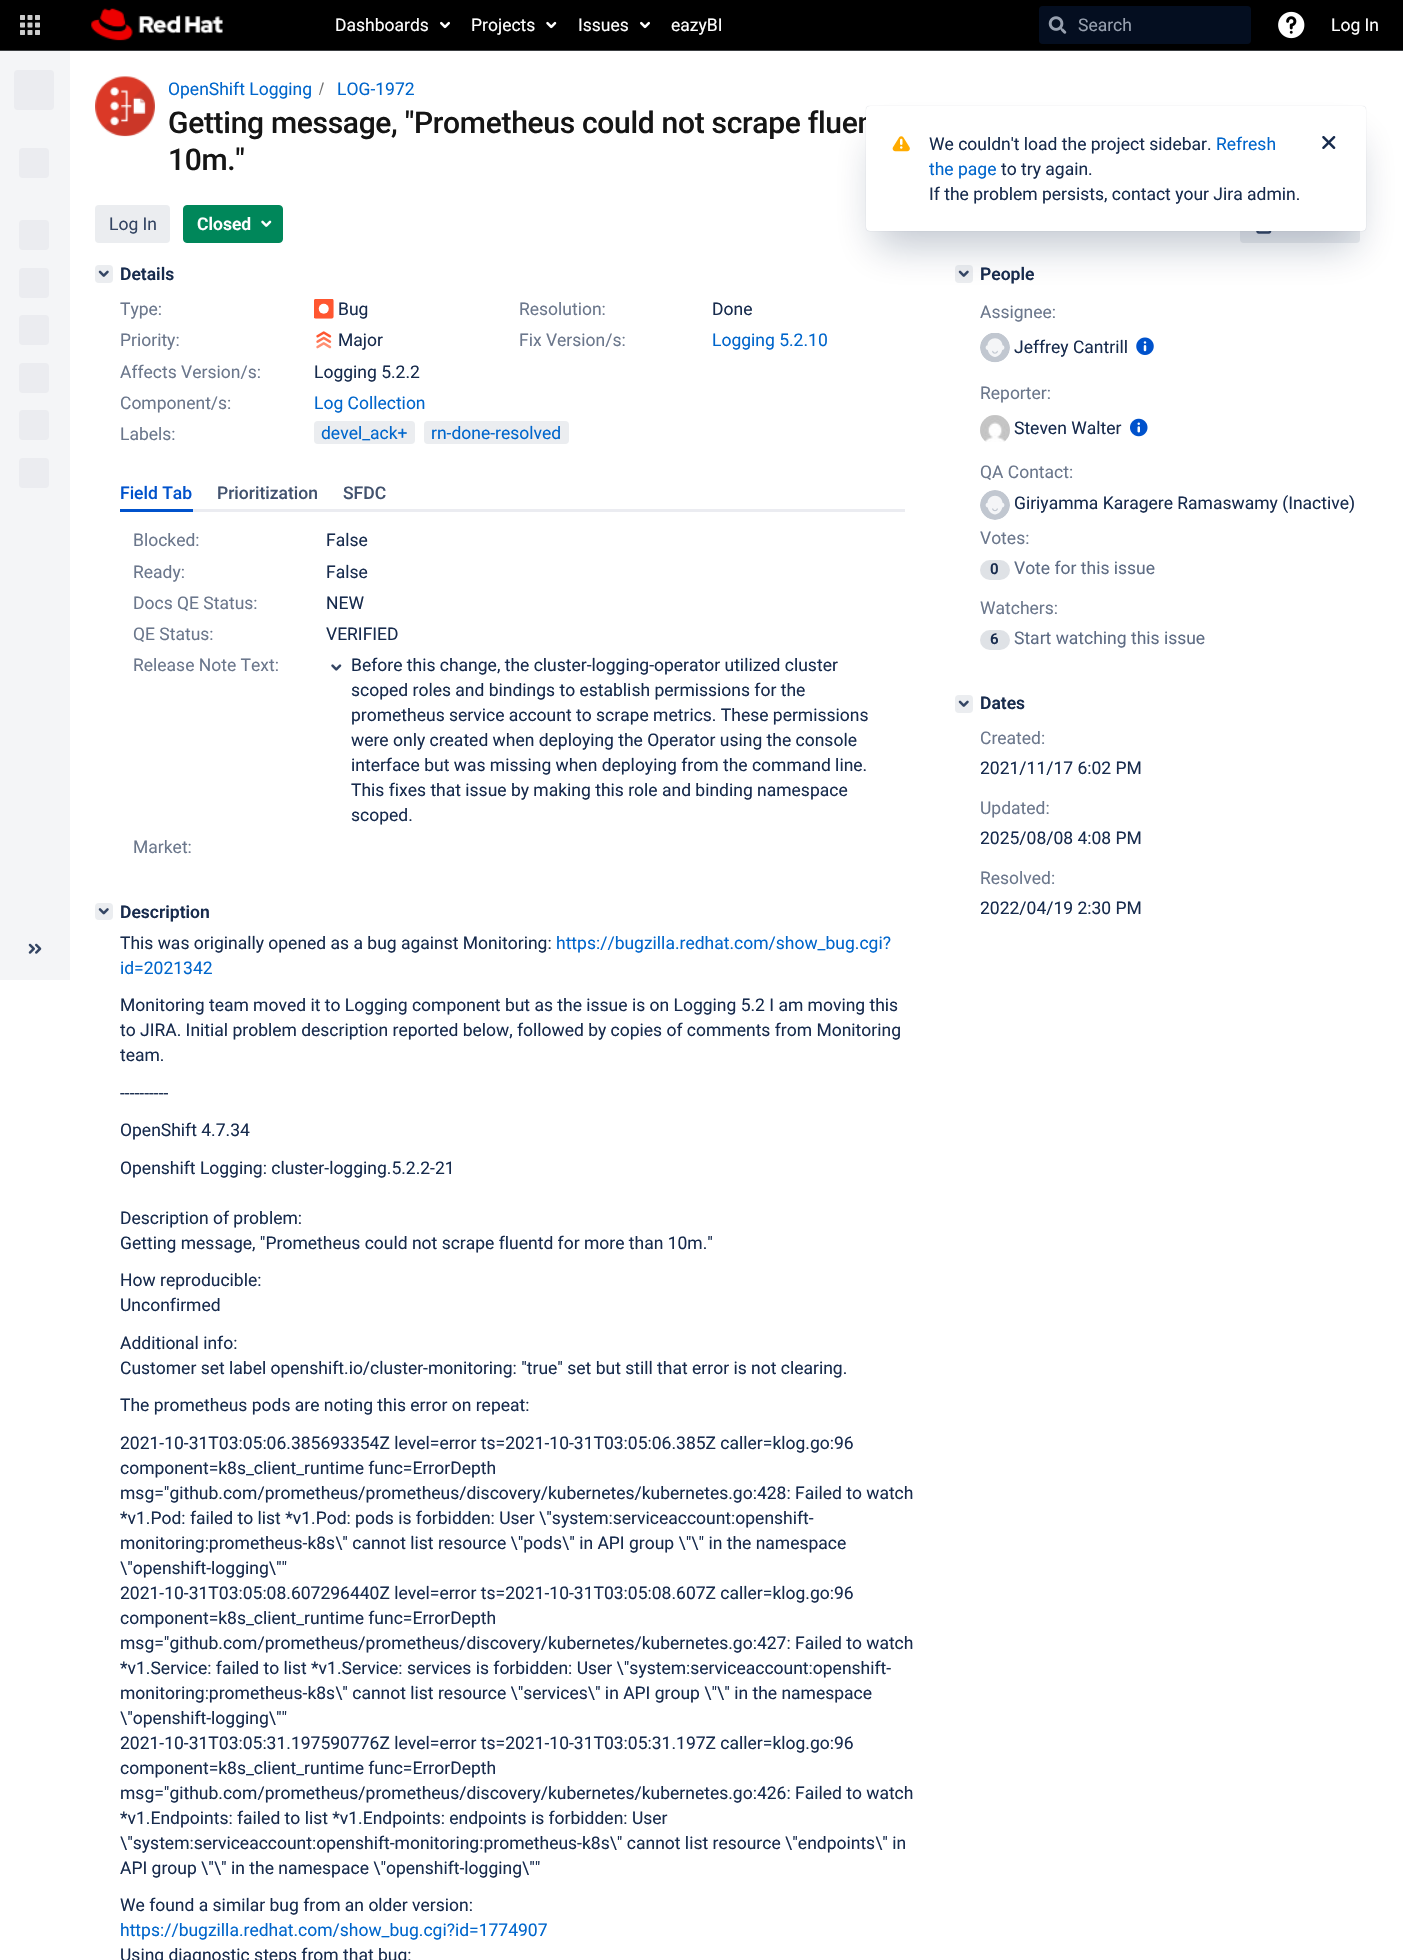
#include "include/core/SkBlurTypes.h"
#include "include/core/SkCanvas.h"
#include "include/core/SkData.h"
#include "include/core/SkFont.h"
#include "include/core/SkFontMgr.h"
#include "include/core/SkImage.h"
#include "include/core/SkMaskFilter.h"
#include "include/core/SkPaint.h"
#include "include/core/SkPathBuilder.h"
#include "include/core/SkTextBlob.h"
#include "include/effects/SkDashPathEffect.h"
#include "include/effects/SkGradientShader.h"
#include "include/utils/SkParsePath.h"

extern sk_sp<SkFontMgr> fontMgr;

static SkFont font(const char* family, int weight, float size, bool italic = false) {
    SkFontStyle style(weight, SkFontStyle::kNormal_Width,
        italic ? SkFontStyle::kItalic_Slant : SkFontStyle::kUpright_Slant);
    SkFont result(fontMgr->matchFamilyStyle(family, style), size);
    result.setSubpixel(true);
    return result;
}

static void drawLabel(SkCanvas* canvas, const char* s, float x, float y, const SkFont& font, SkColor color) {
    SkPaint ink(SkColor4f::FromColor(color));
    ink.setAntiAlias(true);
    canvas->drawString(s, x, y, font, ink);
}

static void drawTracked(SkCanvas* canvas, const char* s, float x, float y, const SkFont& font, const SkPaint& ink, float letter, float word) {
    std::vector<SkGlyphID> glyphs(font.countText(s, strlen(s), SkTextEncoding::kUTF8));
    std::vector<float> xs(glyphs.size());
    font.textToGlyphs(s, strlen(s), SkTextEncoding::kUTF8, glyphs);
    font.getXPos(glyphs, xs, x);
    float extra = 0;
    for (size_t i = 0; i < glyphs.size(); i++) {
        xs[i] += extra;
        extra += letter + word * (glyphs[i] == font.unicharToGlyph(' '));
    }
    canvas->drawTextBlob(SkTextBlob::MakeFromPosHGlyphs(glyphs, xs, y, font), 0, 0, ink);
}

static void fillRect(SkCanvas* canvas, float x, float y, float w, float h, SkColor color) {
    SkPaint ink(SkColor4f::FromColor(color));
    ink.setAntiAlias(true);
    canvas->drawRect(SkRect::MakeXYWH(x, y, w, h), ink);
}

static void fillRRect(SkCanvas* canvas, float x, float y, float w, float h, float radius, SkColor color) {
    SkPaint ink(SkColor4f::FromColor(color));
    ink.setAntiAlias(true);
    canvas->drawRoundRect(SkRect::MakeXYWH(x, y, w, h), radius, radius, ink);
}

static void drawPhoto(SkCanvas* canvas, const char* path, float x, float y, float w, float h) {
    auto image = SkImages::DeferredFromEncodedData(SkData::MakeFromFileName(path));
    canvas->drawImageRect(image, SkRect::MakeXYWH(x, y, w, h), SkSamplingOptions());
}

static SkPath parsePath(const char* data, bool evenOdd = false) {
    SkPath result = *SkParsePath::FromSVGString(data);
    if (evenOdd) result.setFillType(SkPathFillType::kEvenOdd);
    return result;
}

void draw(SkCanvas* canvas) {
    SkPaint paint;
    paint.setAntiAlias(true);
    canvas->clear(0xFFFFFFFF);
    fillRect(canvas, 0, 0, 1403, 50, 0xFF000000);
    fillRect(canvas, 0, 50, 1403, 1, 0xFF3C3F42);
    drawPhoto(canvas, "assets/img1.png", 20, 15, 20, 20);
    drawPhoto(canvas, "assets/img2.png", 91, 8, 132, 33);
    SkFont font1 = font("Roboto", 400, 17.5f);
    drawLabel(canvas, "Dashboards", 335, 31, font1, 0xFFFFFFFF);
    drawPhoto(canvas, "assets/img3.png", 440, 21, 10, 8);
    drawLabel(canvas, "Projects", 471, 31, font1, 0xFFFFFFFF);
    drawPhoto(canvas, "assets/img4.png", 546, 21, 11, 8);
    drawLabel(canvas, "Issues", 578, 31, font1, 0xFFFFFFFF);
    drawPhoto(canvas, "assets/img3.png", 640, 21, 10, 8);
    drawLabel(canvas, "eazyBI", 671, 31, font1, 0xFFFFFFFF);
    fillRRect(canvas, 1039, 6, 212, 38, 4, 0xFF040E20);
    drawPhoto(canvas, "assets/img5.png", 1048, 16, 19, 18);
    drawLabel(canvas, "Search", 1078, 31, font1, 0xFF97A0AF);
    drawPhoto(canvas, "assets/img6.png", 1278, 11, 27, 28);
    drawLabel(canvas, "Log In", 1331, 31, font1, 0xFFFFFFFF);
    fillRect(canvas, 0, 51, 70, 929, 0xFFF4F5F7);
    fillRRect(canvas, 14, 70, 40, 40, 4, 0xFFEBECF0);
    fillRRect(canvas, 19, 148, 30, 30, 4, 0xFFEBECF0);
    fillRRect(canvas, 19, 220, 30, 30, 4, 0xFFEBECF0);
    fillRRect(canvas, 19, 268, 30, 30, 4, 0xFFEBECF0);
    fillRRect(canvas, 19, 315, 30, 30, 4, 0xFFEBECF0);
    fillRRect(canvas, 19, 363, 30, 30, 4, 0xFFEBECF0);
    fillRRect(canvas, 19, 410, 30, 30, 4, 0xFFEBECF0);
    fillRRect(canvas, 19, 458, 30, 30, 4, 0xFFEBECF0);
    drawPhoto(canvas, "assets/img7.png", 28, 943, 14, 11);
    drawPhoto(canvas, "assets/img8.png", 95, 76, 60, 61);
    drawLabel(canvas, "OpenShift Logging", 168, 95, font1, 0xFF0066CC);
    paint.setColor(0xFF707070);
    canvas->drawPath(parsePath("M320 95L324 82.5H322.5L319 95Z"), paint);
    drawLabel(canvas, "LOG-1972", 337, 95, font1, 0xFF0066CC);
    SkFont font2 = font("Roboto", 500, 30);
    paint.setColor(0xFF151515);
    drawTracked(canvas, "Getting message, \"Prometheus could not scrape fluen", 168, 133, font2, paint, -0.3f, 0);
    drawTracked(canvas, "10m.\"", 168, 170, font2, paint, -0.3f, 0);
    fillRRect(canvas, 95, 205, 75, 38, 4, 0xFFEBEDF0);
    drawLabel(canvas, "Log In", 109, 230, font1, 0xFF344563);
    paint.setColor(0xFF00875A);
    canvas->drawRoundRect(SkRect::MakeXYWH(183.5f, 205.5f, 99, 37), 3.5f, 3.5f, paint);
    paint.setStroke(true);
    paint.setStrokeWidth(1);
    canvas->drawRoundRect(SkRect::MakeXYWH(183.5f, 205.5f, 99, 37), 3.5f, 3.5f, paint);
    SkFont font3 = font("Roboto", 600, 17.5f);
    drawLabel(canvas, "Closed", 197, 230, font3, 0xFFFFFFFF);
    drawPhoto(canvas, "assets/img9.png", 261, 220, 11, 7);
    fillRRect(canvas, 1240, 205, 120, 38, 4, 0xFFEBEDF0);
    drawPhoto(canvas, "assets/img10.png", 1256, 231, 16, 3);
    fillRRect(canvas, 95, 265, 18, 18, 4, 0xFFEBEDF0);
    drawPhoto(canvas, "assets/img11.png", 98, 270, 11, 7);
    drawLabel(canvas, "Details", 120, 280, font3, 0xFF172B4D);
    drawLabel(canvas, "Type:", 120, 315, font1, 0xFF6B778C);
    drawPhoto(canvas, "assets/img12.png", 314, 299, 20, 20);
    drawLabel(canvas, "Bug", 338, 315, font1, 0xFF172B4D);
    drawLabel(canvas, "Resolution:", 519, 315, font1, 0xFF6B778C);
    drawLabel(canvas, "Done", 712, 315, font1, 0xFF172B4D);
    drawLabel(canvas, "Priority:", 120, 346, font1, 0xFF6B778C);
    drawPhoto(canvas, "assets/img13.png", 316, 331, 16, 18);
    drawLabel(canvas, "Major", 338, 346, font1, 0xFF172B4D);
    drawLabel(canvas, "Fix Version/s:", 519, 346, font1, 0xFF6B778C);
    drawLabel(canvas, "Logging 5.2.10", 712, 346, font1, 0xFF0066CC);
    drawLabel(canvas, "Affects Version/s:", 120, 378, font1, 0xFF6B778C);
    drawLabel(canvas, "Logging 5.2.2", 314, 378, font1, 0xFF172B4D);
    drawLabel(canvas, "Component/s:", 120, 409, font1, 0xFF6B778C);
    drawLabel(canvas, "Log Collection", 314, 409, font1, 0xFF0066CC);
    drawLabel(canvas, "Labels:", 120, 440, font1, 0xFF6B778C);
    fillRRect(canvas, 314, 421, 101, 23, 4, 0xFFEBEDF0);
    drawLabel(canvas, "devel_ack+", 321, 439, font1, 0xFF0066CC);
    fillRRect(canvas, 424, 421, 145, 23, 4, 0xFFEBEDF0);
    drawLabel(canvas, "rn-done-resolved", 431, 439, font1, 0xFF0066CC);
    SkFont font4 = font("Roboto", 500, 17.5f);
    drawLabel(canvas, "Field Tab", 120, 499, font4, 0xFF0052CC);
    fillRect(canvas, 120, 509, 73, 3, 0xFF0052CC);
    drawLabel(canvas, "Prioritization", 217, 499, font4, 0xFF42526E);
    drawLabel(canvas, "SFDC", 343, 499, font4, 0xFF42526E);
    fillRect(canvas, 193, 509, 712, 3, 0xFFEBECF1);
    drawLabel(canvas, "Blocked:", 133, 546, font1, 0xFF6B778C);
    drawLabel(canvas, "False", 326, 546, font1, 0xFF172B4D);
    drawLabel(canvas, "Ready:", 133, 578, font1, 0xFF6B778C);
    drawLabel(canvas, "False", 326, 578, font1, 0xFF172B4D);
    drawLabel(canvas, "Docs QE Status:", 133, 609, font1, 0xFF6B778C);
    drawLabel(canvas, "NEW", 326, 609, font1, 0xFF172B4D);
    drawLabel(canvas, "QE Status:", 133, 640, font1, 0xFF6B778C);
    drawLabel(canvas, "VERIFIED", 326, 640, font1, 0xFF172B4D);
    drawLabel(canvas, "Release Note Text:", 133, 671, font1, 0xFF6B778C);
    drawPhoto(canvas, "assets/img14.png", 331, 664, 11, 7);
    drawLabel(canvas, "Before this change, the cluster-logging-operator utilized cluster", 351, 671, font1, 0xFF172B4D);
    drawLabel(canvas, "scoped roles and bindings to establish permissions for the", 351, 696, font1, 0xFF172B4D);
    drawLabel(canvas, "prometheus service account to scrape metrics. These permissions", 351, 721, font1, 0xFF172B4D);
    drawLabel(canvas, "were only created when deploying the Operator using the console", 351, 746, font1, 0xFF172B4D);
    drawLabel(canvas, "interface but was missing when deploying from the command line.", 351, 771, font1, 0xFF172B4D);
    drawLabel(canvas, "This fixes that issue by making this role and binding namespace", 351, 796, font1, 0xFF172B4D);
    drawLabel(canvas, "scoped.", 351, 821, font1, 0xFF172B4D);
    drawLabel(canvas, "Market:", 133, 853, font1, 0xFF6B778C);
    fillRRect(canvas, 95, 903, 18, 17, 4, 0xFFEBEDF0);
    drawPhoto(canvas, "assets/img15.png", 98, 908, 11, 7);
    drawLabel(canvas, "Description", 120, 918, font3, 0xFF172B4D);
    drawLabel(canvas, "This was originally opened as a bug against Monitoring:", 120, 949, font1, 0xFF172B4D);
    drawLabel(canvas, "https://bugzilla.redhat.com/show_bug.cgi?", 556, 949, font1, 0xFF0066CC);
    drawLabel(canvas, "id=2021342", 120, 974, font1, 0xFF0066CC);
    drawLabel(canvas, "Monitoring team moved it to Logging component but as the issue is on Logging 5.2 I am moving this", 120, 1011, font1, 0xFF172B4D);
    drawLabel(canvas, "to JIRA. Initial problem description reported below, followed by copies of comments from Monitoring", 120, 1036, font1, 0xFF172B4D);
    drawLabel(canvas, "team.", 120, 1061, font1, 0xFF172B4D);
    drawLabel(canvas, "----------", 120, 1099, font1, 0xFF172B4D);
    drawLabel(canvas, "OpenShift 4.7.34", 120, 1136, font1, 0xFF172B4D);
    drawLabel(canvas, "Openshift Logging: cluster-logging.5.2.2-21", 120, 1174, font1, 0xFF172B4D);
    drawLabel(canvas, "Description of problem:", 120, 1224, font1, 0xFF172B4D);
    drawLabel(canvas, "Getting message, \"Prometheus could not scrape fluentd for more than 10m.\"", 120, 1249, font1, 0xFF172B4D);
    drawLabel(canvas, "How reproducible:", 120, 1286, font1, 0xFF172B4D);
    drawLabel(canvas, "Unconfirmed", 120, 1311, font1, 0xFF172B4D);
    drawLabel(canvas, "Additional info:", 120, 1349, font1, 0xFF172B4D);
    drawLabel(canvas, "Customer set label openshift.io/cluster-monitoring: \"true\" set but still that error is not clearing.", 120, 1374, font1, 0xFF172B4D);
    drawLabel(canvas, "The prometheus pods are noting this error on repeat:", 120, 1411, font1, 0xFF172B4D);
    drawLabel(canvas, "2021-10-31T03:05:06.385693354Z level=error ts=2021-10-31T03:05:06.385Z caller=klog.go:96", 120, 1449, font1, 0xFF172B4D);
    drawLabel(canvas, "component=k8s_client_runtime func=ErrorDepth", 120, 1474, font1, 0xFF172B4D);
    drawLabel(canvas, "msg=\"github.com/prometheus/prometheus/discovery/kubernetes/kubernetes.go:428: Failed to watch", 120, 1499, font1, 0xFF172B4D);
    drawLabel(canvas, "*v1.Pod: failed to list *v1.Pod: pods is forbidden: User \\\"system:serviceaccount:openshift-", 120, 1524, font1, 0xFF172B4D);
    drawLabel(canvas, "monitoring:prometheus-k8s\\\" cannot list resource \\\"pods\\\" in API group \\\"\\\" in the namespace", 120, 1549, font1, 0xFF172B4D);
    drawLabel(canvas, "\\\"openshift-logging\\\"\"", 120, 1574, font1, 0xFF172B4D);
    drawLabel(canvas, "2021-10-31T03:05:08.607296440Z level=error ts=2021-10-31T03:05:08.607Z caller=klog.go:96", 120, 1599, font1, 0xFF172B4D);
    drawLabel(canvas, "component=k8s_client_runtime func=ErrorDepth", 120, 1624, font1, 0xFF172B4D);
    drawLabel(canvas, "msg=\"github.com/prometheus/prometheus/discovery/kubernetes/kubernetes.go:427: Failed to watch", 120, 1649, font1, 0xFF172B4D);
    drawLabel(canvas, "*v1.Service: failed to list *v1.Service: services is forbidden: User \\\"system:serviceaccount:openshift-", 120, 1674, font1, 0xFF172B4D);
    drawLabel(canvas, "monitoring:prometheus-k8s\\\" cannot list resource \\\"services\\\" in API group \\\"\\\" in the namespace", 120, 1699, font1, 0xFF172B4D);
    drawLabel(canvas, "\\\"openshift-logging\\\"\"", 120, 1724, font1, 0xFF172B4D);
    drawLabel(canvas, "2021-10-31T03:05:31.197590776Z level=error ts=2021-10-31T03:05:31.197Z caller=klog.go:96", 120, 1749, font1, 0xFF172B4D);
    drawLabel(canvas, "component=k8s_client_runtime func=ErrorDepth", 120, 1774, font1, 0xFF172B4D);
    drawLabel(canvas, "msg=\"github.com/prometheus/prometheus/discovery/kubernetes/kubernetes.go:426: Failed to watch", 120, 1799, font1, 0xFF172B4D);
    drawLabel(canvas, "*v1.Endpoints: failed to list *v1.Endpoints: endpoints is forbidden: User", 120, 1824, font1, 0xFF172B4D);
    drawLabel(canvas, "\\\"system:serviceaccount:openshift-monitoring:prometheus-k8s\\\" cannot list resource \\\"endpoints\\\" in", 120, 1849, font1, 0xFF172B4D);
    drawLabel(canvas, "API group \\\"\\\" in the namespace \\\"openshift-logging\\\"\"", 120, 1874, font1, 0xFF172B4D);
    drawLabel(canvas, "We found a similar bug from an older version:", 120, 1911, font1, 0xFF172B4D);
    drawLabel(canvas, "https://bugzilla.redhat.com/show_bug.cgi?id=1774907", 120, 1936, font1, 0xFF0066CC);
    drawLabel(canvas, "Using diagnostic steps from that bug:", 120, 1961, font1, 0xFF172B4D);
    fillRRect(canvas, 955, 265, 18, 18, 4, 0xFFEBEDF0);
    drawPhoto(canvas, "assets/img11.png", 958, 270, 11, 7);
    drawLabel(canvas, "People", 980, 280, font3, 0xFF172B4D);
    drawLabel(canvas, "Assignee:", 980, 318, font1, 0xFF6B778C);
    drawPhoto(canvas, "assets/img16.png", 980, 333, 30, 30);
    drawLabel(canvas, "Jeffrey Cantrill", 1014, 353, font1, 0xFF172B4D);
    drawPhoto(canvas, "assets/img17.png", 1136, 337, 18, 18);
    drawLabel(canvas, "Reporter:", 980, 399, font1, 0xFF6B778C);
    drawPhoto(canvas, "assets/img18.png", 980, 415, 30, 27);
    drawLabel(canvas, "Steven Walter", 1014, 434, font1, 0xFF172B4D);
    drawPhoto(canvas, "assets/img19.png", 1130, 418, 18, 19);
    drawLabel(canvas, "QA Contact:", 980, 478, font1, 0xFF6B778C);
    drawPhoto(canvas, "assets/img20.png", 980, 490, 30, 30);
    drawLabel(canvas, "Giriyamma Karagere Ramaswamy (Inactive)", 1014, 509, font1, 0xFF172B4D);
    drawLabel(canvas, "Votes:", 980, 544, font1, 0xFF6B778C);
    fillRRect(canvas, 980, 560, 30, 20, 10, 0xFFDFE2E6);
    SkFont font5 = font("Roboto", 600, 15);
    drawLabel(canvas, "0", 990, 574, font5, 0xFF172B4D);
    drawLabel(canvas, "Vote for this issue", 1014, 574, font1, 0xFF5E6C84);
    drawLabel(canvas, "Watchers:", 980, 614, font1, 0xFF6B778C);
    fillRRect(canvas, 980, 630, 30, 20, 10, 0xFFDFE2E6);
    drawLabel(canvas, "6", 990, 644, font5, 0xFF172B4D);
    drawLabel(canvas, "Start watching this issue", 1014, 644, font1, 0xFF5E6C84);
    fillRRect(canvas, 955, 695, 18, 18, 4, 0xFFEBEDF0);
    drawPhoto(canvas, "assets/img11.png", 958, 700, 11, 7);
    drawLabel(canvas, "Dates", 980, 709, font3, 0xFF172B4D);
    drawLabel(canvas, "Created:", 980, 744, font1, 0xFF6B778C);
    drawLabel(canvas, "2021/11/17 6:02 PM", 980, 774, font1, 0xFF172B4D);
    drawLabel(canvas, "Updated:", 980, 814, font1, 0xFF6B778C);
    drawLabel(canvas, "2025/08/08 4:08 PM", 980, 844, font1, 0xFF172B4D);
    drawLabel(canvas, "Resolved:", 980, 884, font1, 0xFF6B778C);
    drawLabel(canvas, "2022/04/19 2:30 PM", 980, 914, font1, 0xFF172B4D);
    paint.setStroke(false);
    paint.setColor(0x40091E42);
    paint.setMaskFilter(SkMaskFilter::MakeBlur(kNormal_SkBlurStyle, 0.5f));
    canvas->drawRoundRect(SkRect::MakeXYWH(866, 106, 500, 125), 4, 4, paint);
    paint.setMaskFilter(nullptr);
    paint.setMaskFilter(SkMaskFilter::MakeBlur(kNormal_SkBlurStyle, 20));
    canvas->drawRect(SkRect::MakeXYWH(876, 141, 480, 105), paint);
    paint.setMaskFilter(nullptr);
    fillRRect(canvas, 866, 106, 500, 125, 4, 0xFFFFFFFF);
    drawPhoto(canvas, "assets/img21.png", 892, 136, 18, 16);
    drawLabel(canvas, "We couldn't load the project sidebar.", 929, 150, font1, 0xFF172B4D);
    drawLabel(canvas, "Refresh", 1216, 150, font1, 0xFF0066CC);
    drawPhoto(canvas, "assets/img22.png", 1322, 136, 14, 13);
    drawLabel(canvas, "the page", 929, 175, font1, 0xFF0066CC);
    drawLabel(canvas, "to try again.", 1001, 175, font1, 0xFF172B4D);
    drawLabel(canvas, "If the problem persists, contact your Jira admin.", 929, 200, font1, 0xFF172B4D);
}
